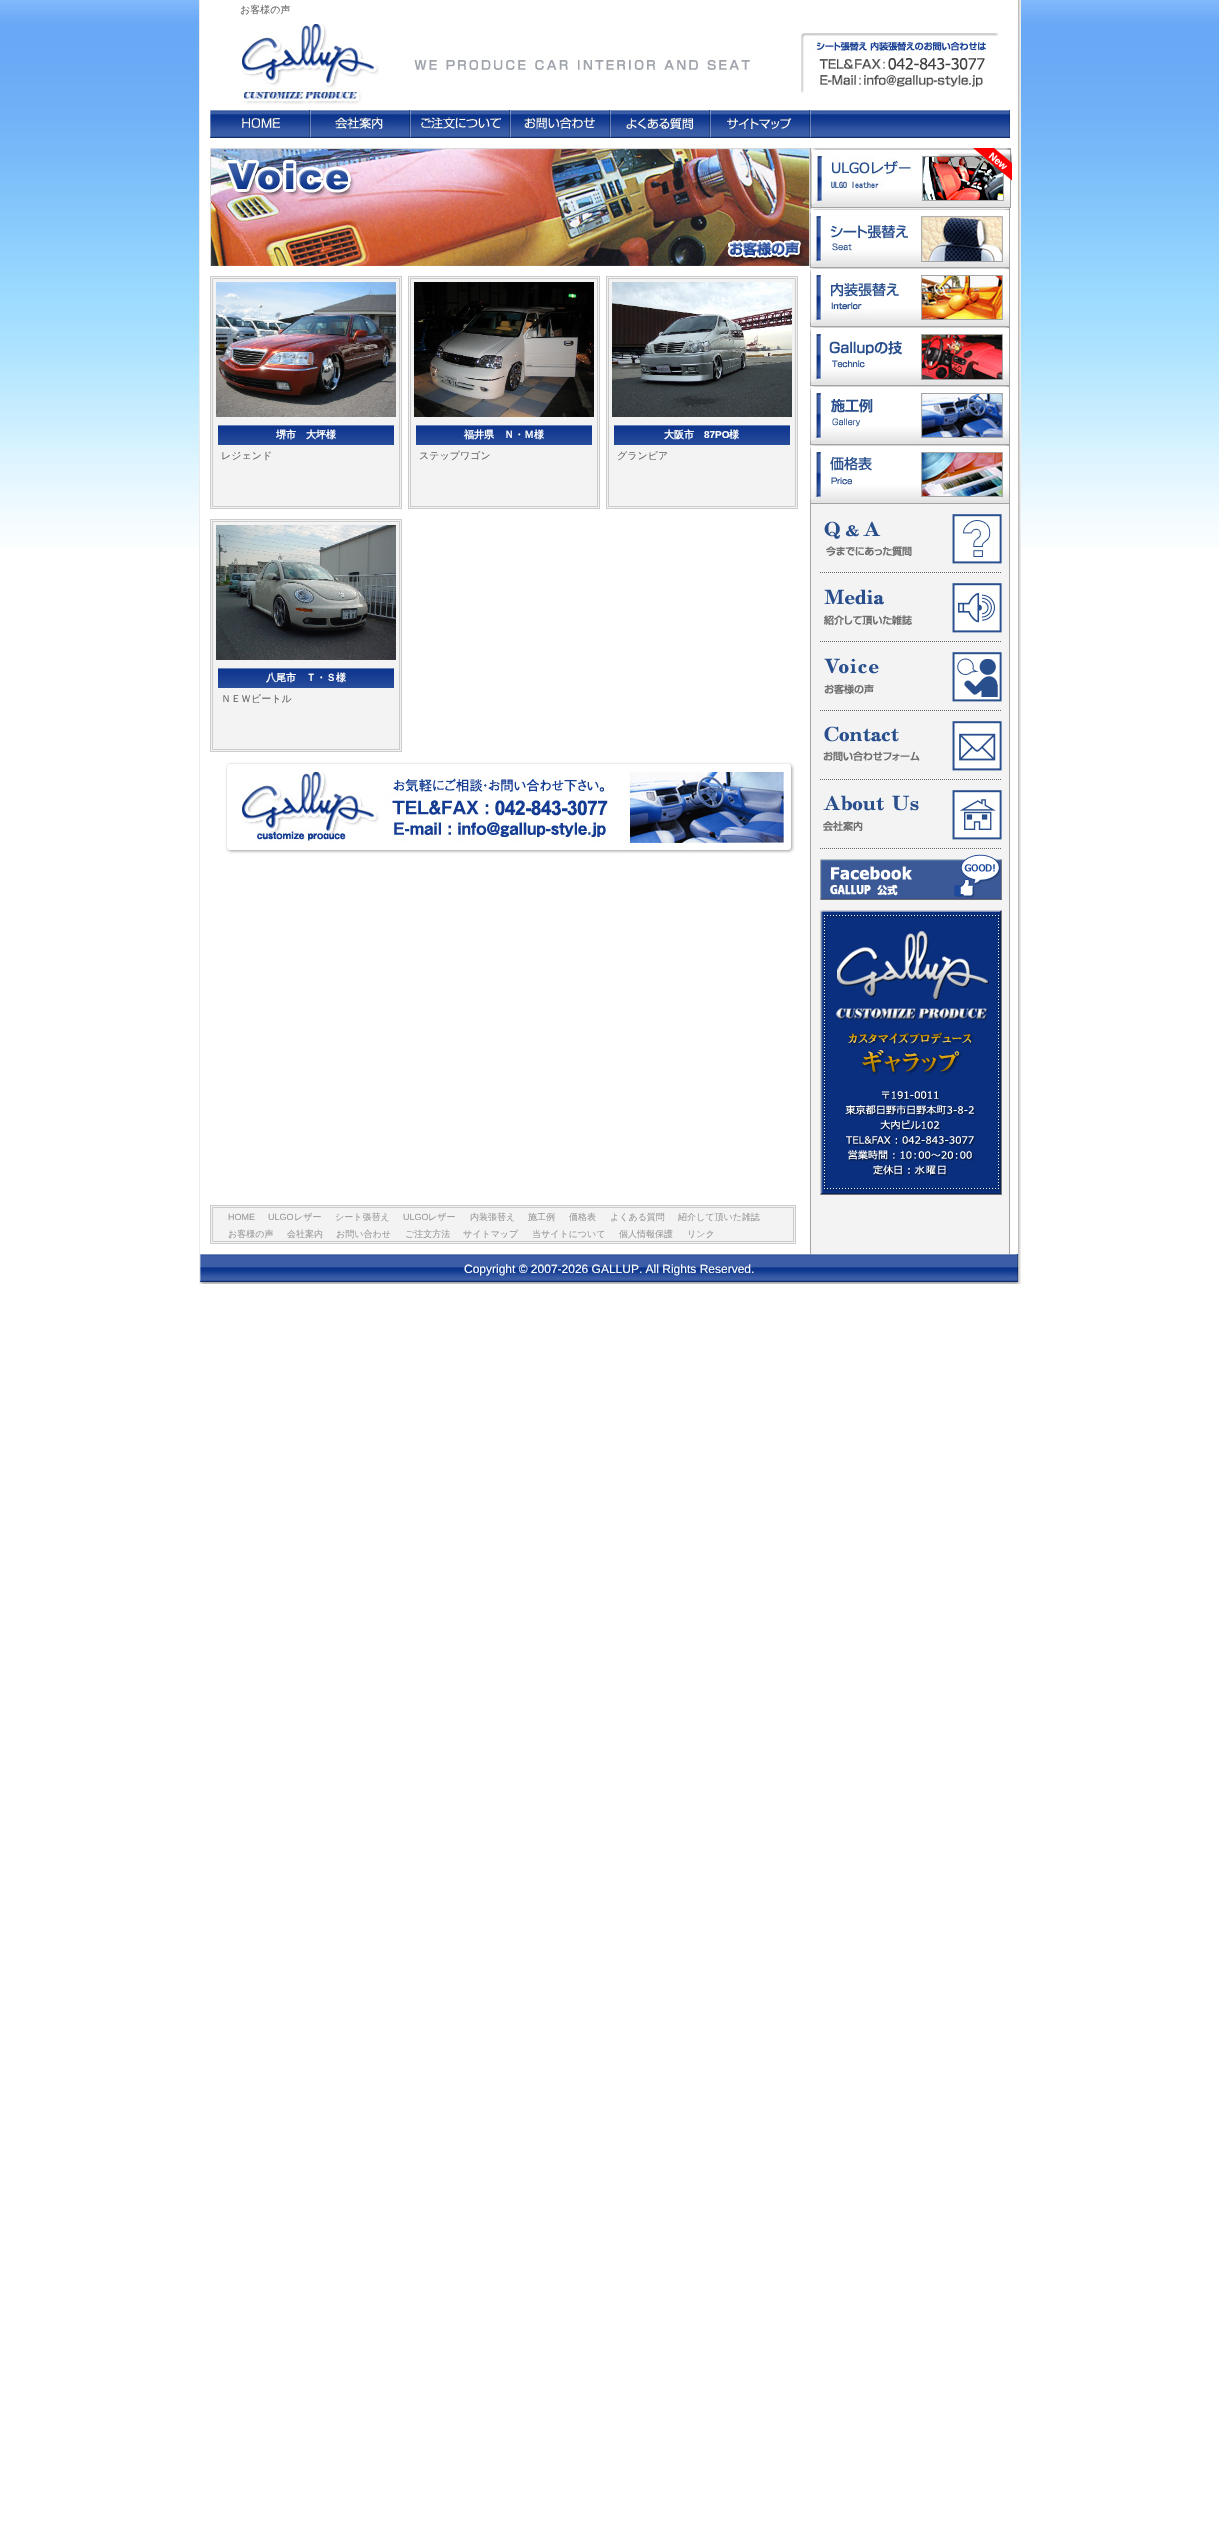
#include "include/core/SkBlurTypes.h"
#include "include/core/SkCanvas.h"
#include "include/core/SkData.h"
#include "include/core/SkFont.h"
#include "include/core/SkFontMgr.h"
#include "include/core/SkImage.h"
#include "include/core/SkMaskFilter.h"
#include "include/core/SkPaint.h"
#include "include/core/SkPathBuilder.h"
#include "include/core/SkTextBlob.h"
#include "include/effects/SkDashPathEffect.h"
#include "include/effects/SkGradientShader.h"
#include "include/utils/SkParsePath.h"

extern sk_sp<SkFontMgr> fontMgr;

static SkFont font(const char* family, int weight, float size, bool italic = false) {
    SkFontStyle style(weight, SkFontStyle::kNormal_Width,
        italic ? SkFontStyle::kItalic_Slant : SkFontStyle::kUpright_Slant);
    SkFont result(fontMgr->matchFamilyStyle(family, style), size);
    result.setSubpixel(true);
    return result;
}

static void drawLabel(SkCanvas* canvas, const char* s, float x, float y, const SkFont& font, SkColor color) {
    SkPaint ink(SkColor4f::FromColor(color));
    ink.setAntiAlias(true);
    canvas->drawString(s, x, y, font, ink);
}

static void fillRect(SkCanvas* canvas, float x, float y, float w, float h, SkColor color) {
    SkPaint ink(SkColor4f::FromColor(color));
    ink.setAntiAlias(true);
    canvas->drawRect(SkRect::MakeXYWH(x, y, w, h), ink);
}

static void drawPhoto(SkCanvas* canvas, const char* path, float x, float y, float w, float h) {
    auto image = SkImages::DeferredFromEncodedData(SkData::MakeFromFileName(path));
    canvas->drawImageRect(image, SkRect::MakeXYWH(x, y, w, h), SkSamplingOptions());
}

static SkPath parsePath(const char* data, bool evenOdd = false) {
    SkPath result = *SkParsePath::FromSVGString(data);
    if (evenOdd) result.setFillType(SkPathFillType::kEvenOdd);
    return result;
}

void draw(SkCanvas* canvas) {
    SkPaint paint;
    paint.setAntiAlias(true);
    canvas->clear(0xFFFFFFFF);
    drawPhoto(canvas, "assets/img1.png", 0, 0, 1219, 548);
    drawPhoto(canvas, "assets/img2.png", 199, 0, 822, 1254);
    drawPhoto(canvas, "assets/img3.png", 242, 0, 768, 110);
    SkFont font1 = font("WenQuanYi Zen Hei", 500, 10);
    drawLabel(canvas, "お客様の声", 240, 13, font1, 0xFF666666);
    fillRect(canvas, 810, 138, 200, 10, 0xFFFFFFFF);
    drawPhoto(canvas, "assets/img4.png", 210, 110, 100, 28);
    drawPhoto(canvas, "assets/img5.png", 310, 110, 100, 28);
    drawPhoto(canvas, "assets/img6.png", 410, 110, 100, 28);
    drawPhoto(canvas, "assets/img7.png", 510, 110, 100, 28);
    drawPhoto(canvas, "assets/img8.png", 610, 110, 100, 28);
    drawPhoto(canvas, "assets/img9.png", 710, 110, 100, 28);
    drawPhoto(canvas, "assets/img10.png", 810, 110, 200, 28);
    drawPhoto(canvas, "assets/img11.png", 811, 148, 200, 1);
    drawPhoto(canvas, "assets/img12.png", 811, 149, 200, 59);
    canvas->save();
    canvas->clipRect(SkRect::MakeXYWH(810, 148, 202, 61));
    paint.setColor(0x4D000000);
    paint.setMaskFilter(SkMaskFilter::MakeBlur(kNormal_SkBlurStyle, 1.5f));
    canvas->drawRect(SkRect::MakeXYWH(939, 155, 120, 13), paint);
    paint.setMaskFilter(nullptr);
    canvas->restore();
    canvas->save();
    canvas->clipRect(SkRect::MakeXYWH(810, 148, 202, 61));
    paint.setColor(0xFFFF0000);
    canvas->drawPath(parsePath("M957 117L1049 194L1040 204L948 127Z"), paint);
    canvas->restore();
    SkFont font2 = font("Liberation Sans", 700, 10);
    canvas->save();
    canvas->rotate(40, 988, 157);
    drawLabel(canvas, "New", 988, 157, font2, 0xFFFFFFFF);
    canvas->restore();
    drawPhoto(canvas, "assets/img13.png", 810, 209, 199, 59);
    drawPhoto(canvas, "assets/img14.png", 810, 209, 192, 55);
    drawPhoto(canvas, "assets/img15.png", 810, 268, 199, 59);
    drawPhoto(canvas, "assets/img16.png", 810, 268, 192, 56);
    drawPhoto(canvas, "assets/img17.png", 810, 327, 199, 59);
    drawPhoto(canvas, "assets/img18.png", 810, 327, 192, 55);
    drawPhoto(canvas, "assets/img19.png", 810, 386, 199, 59);
    drawPhoto(canvas, "assets/img20.png", 810, 386, 192, 56);
    drawPhoto(canvas, "assets/img21.png", 810, 445, 199, 59);
    drawPhoto(canvas, "assets/img22.png", 810, 445, 192, 56);
    paint.setStroke(true);
    paint.setStrokeWidth(1);
    paint.setColor(0xFF666666);
    paint.setPathEffect(SkDashPathEffect::Make({{1, 1}}, 0));
    canvas->drawPath(parsePath("M820 572.5H1002"), paint);
    paint.setPathEffect(nullptr);
    drawPhoto(canvas, "assets/img23.png", 822, 514, 180, 50);
    drawPhoto(canvas, "assets/img24.png", 822, 583, 1, 50);
    paint.setPathEffect(SkDashPathEffect::Make({{1, 1}}, 0));
    canvas->drawPath(parsePath("M820 641.5H1002"), paint);
    paint.setPathEffect(nullptr);
    drawPhoto(canvas, "assets/img25.png", 823, 583, 179, 50);
    paint.setPathEffect(SkDashPathEffect::Make({{1, 1}}, 0));
    canvas->drawPath(parsePath("M820 710.5H1002"), paint);
    paint.setPathEffect(nullptr);
    drawPhoto(canvas, "assets/img26.png", 824, 652, 178, 50);
    paint.setPathEffect(SkDashPathEffect::Make({{1, 1}}, 0));
    canvas->drawPath(parsePath("M820 779.5H1002"), paint);
    paint.setPathEffect(nullptr);
    drawPhoto(canvas, "assets/img27.png", 821, 721, 181, 50);
    paint.setPathEffect(SkDashPathEffect::Make({{1, 1}}, 0));
    canvas->drawPath(parsePath("M820 848.5H1002"), paint);
    paint.setPathEffect(nullptr);
    drawPhoto(canvas, "assets/img28.png", 821, 790, 181, 50);
    drawPhoto(canvas, "assets/img29.png", 820, 854, 182, 46);
    drawPhoto(canvas, "assets/img30.png", 820, 910, 182, 285);
    drawPhoto(canvas, "assets/img31.png", 210, 148, 600, 118);
    paint.setStroke(false);
    paint.setColor(0xFFF3F3F3);
    canvas->drawRect(SkRect::MakeXYWH(210.5f, 276.5f, 191, 232), paint);
    paint.setStroke(true);
    paint.setColor(0xFFCCCCCC);
    canvas->drawRect(SkRect::MakeXYWH(210.5f, 276.5f, 191, 232), paint);
    canvas->drawRect(SkRect::MakeXYWH(212.5f, 278.5f, 187, 228), paint);
    drawPhoto(canvas, "assets/img32.png", 216, 282, 180, 135);
    drawPhoto(canvas, "assets/img33.png", 218, 425, 176, 20);
    SkFont font3 = font("WenQuanYi Zen Hei", 700, 10);
    drawLabel(canvas, "堺市　大坪様", 276, 438, font3, 0xFFFFFFFF);
    drawLabel(canvas, "レジェンド", 221, 459, font1, 0xFF666666);
    paint.setStroke(false);
    paint.setColor(0xFFF3F3F3);
    canvas->drawRect(SkRect::MakeXYWH(408.5f, 276.5f, 191, 232), paint);
    paint.setStroke(true);
    paint.setColor(0xFFCCCCCC);
    canvas->drawRect(SkRect::MakeXYWH(408.5f, 276.5f, 191, 232), paint);
    canvas->drawRect(SkRect::MakeXYWH(410.5f, 278.5f, 187, 228), paint);
    drawPhoto(canvas, "assets/img34.png", 414, 282, 180, 135);
    drawPhoto(canvas, "assets/img33.png", 416, 425, 176, 20);
    drawLabel(canvas, "福井県　Ｎ・Ｍ様", 464, 438, font3, 0xFFFFFFFF);
    drawLabel(canvas, "ステップワゴン", 419, 459, font1, 0xFF666666);
    paint.setStroke(false);
    paint.setColor(0xFFF3F3F3);
    canvas->drawRect(SkRect::MakeXYWH(606.5f, 276.5f, 191, 232), paint);
    paint.setStroke(true);
    paint.setColor(0xFFCCCCCC);
    canvas->drawRect(SkRect::MakeXYWH(606.5f, 276.5f, 191, 232), paint);
    canvas->drawRect(SkRect::MakeXYWH(608.5f, 278.5f, 187, 228), paint);
    drawPhoto(canvas, "assets/img35.png", 612, 282, 180, 135);
    drawPhoto(canvas, "assets/img33.png", 614, 425, 176, 20);
    drawLabel(canvas, "大阪市", 664, 438, font3, 0xFFFFFFFF);
    drawLabel(canvas, "87PO", 704, 438, font2, 0xFFFFFFFF);
    drawLabel(canvas, "様", 729, 438, font3, 0xFFFFFFFF);
    drawLabel(canvas, "グランビア", 617, 459, font1, 0xFF666666);
    paint.setStroke(false);
    paint.setColor(0xFFF3F3F3);
    canvas->drawRect(SkRect::MakeXYWH(210.5f, 519.5f, 191, 232), paint);
    paint.setStroke(true);
    paint.setColor(0xFFCCCCCC);
    canvas->drawRect(SkRect::MakeXYWH(210.5f, 519.5f, 191, 232), paint);
    canvas->drawRect(SkRect::MakeXYWH(212.5f, 521.5f, 187, 228), paint);
    drawPhoto(canvas, "assets/img36.png", 216, 525, 180, 135);
    drawPhoto(canvas, "assets/img33.png", 218, 668, 176, 20);
    drawLabel(canvas, "八尾市　Ｔ・Ｓ様", 266, 681, font3, 0xFFFFFFFF);
    drawLabel(canvas, "ＮＥＷビートル", 221, 702, font1, 0xFF666666);
    drawPhoto(canvas, "assets/img37.png", 225, 762, 570, 92);
    paint.setStroke(false);
    paint.setColor(0xFFF3F3F3);
    canvas->drawRect(SkRect::MakeXYWH(210.5f, 1205.5f, 585, 38), paint);
    paint.setStroke(true);
    paint.setColor(0xFFCCCCCC);
    canvas->drawRect(SkRect::MakeXYWH(210.5f, 1205.5f, 585, 38), paint);
    canvas->drawRect(SkRect::MakeXYWH(212.5f, 1207.5f, 581, 34), paint);
    SkFont font4 = font("Liberation Sans", 400, 9);
    drawLabel(canvas, "HOME", 228, 1220, font4, 0xFF999999);
    drawLabel(canvas, "ULGO", 268, 1220, font4, 0xFF999999);
    SkFont font5 = font("WenQuanYi Zen Hei", 500, 9);
    drawLabel(canvas, "レザー", 294, 1220, font5, 0xFF999999);
    drawLabel(canvas, "シート張替え", 335, 1220, font5, 0xFF999999);
    drawLabel(canvas, "ULGO", 403, 1220, font4, 0xFF999999);
    drawLabel(canvas, "レザー", 428, 1220, font5, 0xFF999999);
    drawLabel(canvas, "内装張替え", 470, 1220, font5, 0xFF999999);
    drawLabel(canvas, "施工例", 528, 1220, font5, 0xFF999999);
    drawLabel(canvas, "価格表", 569, 1220, font5, 0xFF999999);
    drawLabel(canvas, "よくある質問", 610, 1220, font5, 0xFF999999);
    drawLabel(canvas, "紹介して頂いた雑誌", 678, 1220, font5, 0xFF999999);
    drawLabel(canvas, "お客様の声", 228, 1237, font5, 0xFF999999);
    drawLabel(canvas, "会社案内", 287, 1237, font5, 0xFF999999);
    drawLabel(canvas, "お問い合わせ", 336, 1237, font5, 0xFF999999);
    drawLabel(canvas, "ご注文方法", 405, 1237, font5, 0xFF999999);
    drawLabel(canvas, "サイトマップ", 463, 1237, font5, 0xFF999999);
    drawLabel(canvas, "当サイトについて", 532, 1237, font5, 0xFF999999);
    drawLabel(canvas, "個人情報保護", 619, 1237, font5, 0xFF999999);
    drawLabel(canvas, "リンク", 687, 1237, font5, 0xFF999999);
    drawPhoto(canvas, "assets/img38.png", 199, 1254, 822, 30);
    SkFont font6 = font("Liberation Sans", 400, 12);
    drawLabel(canvas, "Copyright © 2007-2026 GALLUP. All Rights Reserved.", 464, 1273, font6, 0xFFFFFFFF);
}
